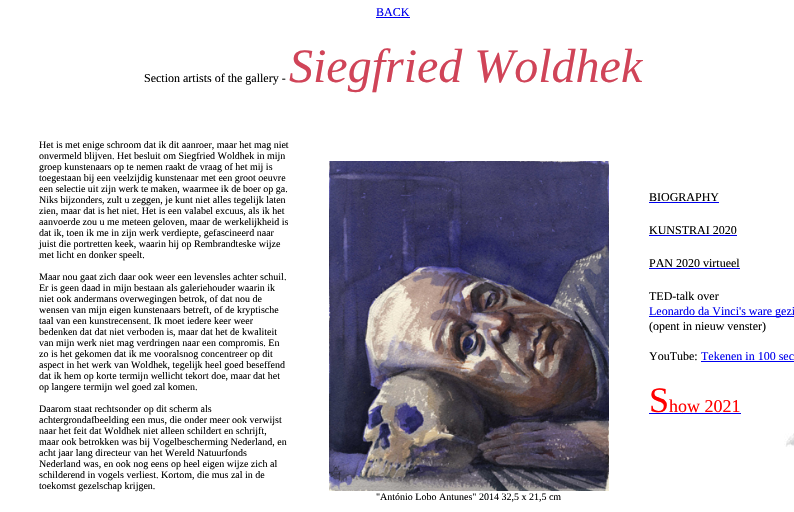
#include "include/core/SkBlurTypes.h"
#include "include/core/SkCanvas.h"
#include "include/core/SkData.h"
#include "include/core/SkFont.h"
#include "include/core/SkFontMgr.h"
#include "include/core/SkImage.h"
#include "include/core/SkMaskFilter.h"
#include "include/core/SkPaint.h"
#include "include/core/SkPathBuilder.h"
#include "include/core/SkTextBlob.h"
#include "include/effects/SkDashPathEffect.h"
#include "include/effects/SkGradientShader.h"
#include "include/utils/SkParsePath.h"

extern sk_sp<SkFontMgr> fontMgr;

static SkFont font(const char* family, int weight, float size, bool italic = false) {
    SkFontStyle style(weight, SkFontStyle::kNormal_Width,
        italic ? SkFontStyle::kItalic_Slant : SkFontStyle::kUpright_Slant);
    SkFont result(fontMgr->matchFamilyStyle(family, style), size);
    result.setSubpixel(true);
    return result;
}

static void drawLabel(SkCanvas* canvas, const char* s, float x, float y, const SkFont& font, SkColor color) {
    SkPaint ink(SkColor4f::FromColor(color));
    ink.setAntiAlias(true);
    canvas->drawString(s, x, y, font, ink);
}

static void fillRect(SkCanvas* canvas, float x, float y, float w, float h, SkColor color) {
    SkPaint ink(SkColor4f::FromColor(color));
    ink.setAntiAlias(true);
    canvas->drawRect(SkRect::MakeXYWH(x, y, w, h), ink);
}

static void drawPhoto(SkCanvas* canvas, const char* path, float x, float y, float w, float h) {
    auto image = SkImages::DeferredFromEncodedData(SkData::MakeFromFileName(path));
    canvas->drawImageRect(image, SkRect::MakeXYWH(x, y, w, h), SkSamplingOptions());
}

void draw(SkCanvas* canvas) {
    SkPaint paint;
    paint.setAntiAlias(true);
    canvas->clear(0xFFFFFFFF);
    drawPhoto(canvas, "assets/img1.png", 784, 433, 10, 14);
    SkFont font1 = font("Liberation Serif", 400, 12);
    drawLabel(canvas, "BACK", 376, 16, font1, 0xFF0000EE);
    fillRect(canvas, 376, 17, 34, 1, 0xFF0000EE);
    drawLabel(canvas, "Section artists of the gallery -", 144, 82, font1, 0xFF000000);
    SkFont font2 = font("Liberation Serif", 400, 48, true);
    drawLabel(canvas, "Siegfried Woldhek", 289, 82, font2, 0xFFD04458);
    SkFont font3 = font("Liberation Serif", 400, 10);
    drawLabel(canvas, "Het is met enige schroom dat ik dit aanroer, maar het mag niet", 39, 148, font3, 0xFF000000);
    drawLabel(canvas, "onvermeld blijven. Het besluit om Siegfried Woldhek in mijn", 39, 159, font3, 0xFF000000);
    drawLabel(canvas, "groep kunstenaars op te nemen raakt de vraag of het mij is", 39, 170, font3, 0xFF000000);
    drawLabel(canvas, "toegestaan bij een veelzijdig kunstenaar met een groot oeuvre", 39, 181, font3, 0xFF000000);
    drawLabel(canvas, "een selectie uit zijn werk te maken, waarmee ik de boer op ga.", 39, 192, font3, 0xFF000000);
    drawLabel(canvas, "Niks bijzonders, zult u zeggen, je kunt niet alles tegelijk laten", 39, 203, font3, 0xFF000000);
    drawLabel(canvas, "zien, maar dat is het niet. Het is een valabel excuus, als ik het", 39, 214, font3, 0xFF000000);
    drawLabel(canvas, "aanvoerde zou u me meteen geloven, maar de werkelijkheid is", 39, 225, font3, 0xFF000000);
    drawLabel(canvas, "dat ik, toen ik me in zijn werk verdiepte, gefascineerd naar", 39, 236, font3, 0xFF000000);
    drawLabel(canvas, "juist die portretten keek, waarin hij op Rembrandteske wijze", 39, 247, font3, 0xFF000000);
    drawLabel(canvas, "met licht en donker speelt.", 39, 258, font3, 0xFF000000);
    drawLabel(canvas, "Maar nou gaat zich daar ook weer een levensles achter schuil.", 39, 280, font3, 0xFF000000);
    drawLabel(canvas, "Er is geen daad in mijn bestaan als galeriehouder waarin ik", 39, 291, font3, 0xFF000000);
    drawLabel(canvas, "niet ook andermans overwegingen betrok, of dat nou de", 39, 302, font3, 0xFF000000);
    drawLabel(canvas, "wensen van mijn eigen kunstenaars betreft, of de kryptische", 39, 313, font3, 0xFF000000);
    drawLabel(canvas, "taal van een kunstrecensent. Ik moet iedere keer weer", 39, 324, font3, 0xFF000000);
    drawLabel(canvas, "bedenken dat dat niet verboden is, maar dat het de kwaliteit", 39, 335, font3, 0xFF000000);
    drawLabel(canvas, "van mijn werk niet mag verdringen naar een compromis. En", 39, 346, font3, 0xFF000000);
    drawLabel(canvas, "zo is het gekomen dat ik me vooralsnog concentreer op dit", 39, 357, font3, 0xFF000000);
    drawLabel(canvas, "aspect in het werk van Woldhek, tegelijk heel goed beseffend", 39, 368, font3, 0xFF000000);
    drawLabel(canvas, "dat ik hem op korte termijn wellicht tekort doe, maar dat het", 39, 379, font3, 0xFF000000);
    drawLabel(canvas, "op langere termijn wel goed zal komen.", 39, 390, font3, 0xFF000000);
    drawLabel(canvas, "Daarom staat rechtsonder op dit scherm als", 39, 412, font3, 0xFF000000);
    drawLabel(canvas, "achtergrondafbeelding een mus, die onder meer ook verwijst", 39, 423, font3, 0xFF000000);
    drawLabel(canvas, "naar het feit dat Woldhek niet alleen schildert en schrijft,", 39, 434, font3, 0xFF000000);
    drawLabel(canvas, "maar ook betrokken was bij Vogelbescherming Nederland, en", 39, 445, font3, 0xFF000000);
    drawLabel(canvas, "acht jaar lang directeur van het Wereld Natuurfonds", 39, 456, font3, 0xFF000000);
    drawLabel(canvas, "Nederland was, en ook nog eens op heel eigen wijze zich al", 39, 467, font3, 0xFF000000);
    drawLabel(canvas, "schilderend in vogels verliest. Kortom, die mus zal in de", 39, 478, font3, 0xFF000000);
    drawLabel(canvas, "toekomst gezelschap krijgen.", 39, 489, font3, 0xFF000000);
    drawLabel(canvas, "BIOGRAPHY", 649, 201, font1, 0xFF000000);
    fillRect(canvas, 649, 202, 70, 1, 0xFF0000EE);
    drawLabel(canvas, "KUNSTRAI 2020", 649, 234, font1, 0xFF000000);
    fillRect(canvas, 649, 235, 88, 1, 0xFF0000EE);
    drawLabel(canvas, "PAN 2020 virtueel", 649, 267, font1, 0xFF000000);
    fillRect(canvas, 649, 268, 91, 1, 0xFF0000EE);
    drawLabel(canvas, "TED-talk over", 649, 300, font1, 0xFF000000);
    fillRect(canvas, 649, 316, 145, 1, 0xFF0000EE);
    drawLabel(canvas, "Leonardo da Vinci's ware gezi", 649, 315, font1, 0xFF0000EE);
    drawLabel(canvas, "(opent in nieuw venster)", 649, 330, font1, 0xFF000000);
    drawLabel(canvas, "YouTube:", 649, 360, font1, 0xFF000000);
    drawLabel(canvas, "Tekenen in 100 sec", 701, 360, font1, 0xFF0000EE);
    fillRect(canvas, 701, 361, 93, 1, 0xFF0000EE);
    SkFont font4 = font("Liberation Serif", 400, 36);
    drawLabel(canvas, "S", 649, 412, font4, 0xFFFF0000);
    SkFont font5 = font("Liberation Serif", 400, 18);
    drawLabel(canvas, "how 2021", 669, 412, font5, 0xFFFF0000);
    fillRect(canvas, 649, 413, 92, 1, 0xFF0000EE);
    drawPhoto(canvas, "assets/img2.png", 329, 161, 280, 330);
    drawLabel(canvas, "\"António Lobo Antunes\" 2014 32,5 x 21,5 cm", 376, 500, font3, 0xFF000000);
}
